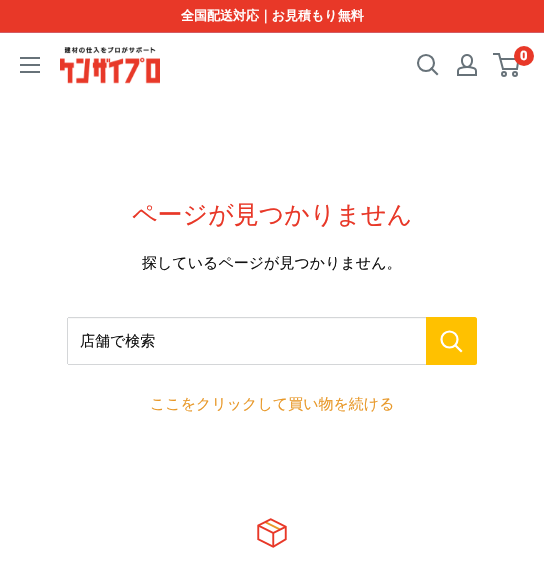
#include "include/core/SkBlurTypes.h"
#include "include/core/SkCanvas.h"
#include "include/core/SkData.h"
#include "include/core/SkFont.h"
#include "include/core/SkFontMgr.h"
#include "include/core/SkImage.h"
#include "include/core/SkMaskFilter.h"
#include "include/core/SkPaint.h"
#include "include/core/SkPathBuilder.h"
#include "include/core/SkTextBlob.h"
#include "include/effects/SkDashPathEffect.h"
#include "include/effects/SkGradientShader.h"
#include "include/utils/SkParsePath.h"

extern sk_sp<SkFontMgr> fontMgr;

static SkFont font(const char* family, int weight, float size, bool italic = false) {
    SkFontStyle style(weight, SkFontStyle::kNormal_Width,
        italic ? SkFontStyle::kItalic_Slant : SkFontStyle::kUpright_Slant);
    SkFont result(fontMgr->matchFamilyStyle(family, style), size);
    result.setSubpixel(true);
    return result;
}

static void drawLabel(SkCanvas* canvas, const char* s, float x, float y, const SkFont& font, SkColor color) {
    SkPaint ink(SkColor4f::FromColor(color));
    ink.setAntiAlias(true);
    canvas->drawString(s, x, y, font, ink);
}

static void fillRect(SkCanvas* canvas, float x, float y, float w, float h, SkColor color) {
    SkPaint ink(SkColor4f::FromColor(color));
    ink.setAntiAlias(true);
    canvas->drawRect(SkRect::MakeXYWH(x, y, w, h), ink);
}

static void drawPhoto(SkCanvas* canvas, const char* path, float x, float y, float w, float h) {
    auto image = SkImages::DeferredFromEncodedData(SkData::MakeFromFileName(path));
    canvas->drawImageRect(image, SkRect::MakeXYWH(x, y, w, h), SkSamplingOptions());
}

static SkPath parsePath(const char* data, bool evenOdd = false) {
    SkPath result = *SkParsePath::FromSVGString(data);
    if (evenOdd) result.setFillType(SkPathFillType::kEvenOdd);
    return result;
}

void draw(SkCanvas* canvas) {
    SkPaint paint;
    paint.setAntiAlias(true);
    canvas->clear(0xFFFFFFFF);
    fillRect(canvas, 0, 0, 544, 32, 0xFFE83828);
    fillRect(canvas, 0, 32, 544, 1, 0xFFD35C64);
    SkFont font1 = font("WenQuanYi Zen Hei", 700, 13);
    drawLabel(canvas, "全国配送対応｜お見積もり無料", 181, 20, font1, 0xFFFFFFFF);
    drawPhoto(canvas, "assets/img1.png", 60, 47, 100, 37);
    paint.setStroke(true);
    paint.setStrokeWidth(2.1f);
    paint.setStrokeCap(SkPaint::kSquare_Cap);
    paint.setColor(0xFF677279);
    canvas->drawPath(parsePath("M437 74L431.5 68.5"), paint);
    paint.setStrokeCap(SkPaint::kButt_Cap);
    canvas->drawCircle(426, 63, 8, paint);
    drawPhoto(canvas, "assets/img2.png", 457, 54, 20, 22);
    paint.setStrokeWidth(2);
    canvas->drawCircle(504, 74, 2, paint);
    canvas->drawCircle(515, 74, 2, paint);
    canvas->drawPath(parsePath("M500.5 59H518.5L517 69H503L499 54H493"), paint);
    paint.setStroke(false);
    paint.setColor(0xFFE83828);
    canvas->drawCircle(524, 56, 10, paint);
    SkFont font2 = font("Roboto", 900, 13);
    drawLabel(canvas, "0", 520, 60, font2, 0xFFFFFFFF);
    drawPhoto(canvas, "assets/img3.png", 20, 57, 20, 16);
    SkFont font3 = font("WenQuanYi Zen Hei", 500, 25);
    drawLabel(canvas, "ページが見つかりません", 132, 223, font3, 0xFFE83828);
    SkFont font4 = font("WenQuanYi Zen Hei", 500, 15);
    drawLabel(canvas, "探しているページが見つかりません。", 142, 268, font4, 0xFF111111);
    paint.setColor(0xFFF8F8F8);
    canvas->drawPath(parsePath("M69 319H426V318H69C68 318 68 319 68 320C68 319 68 319 69 319Z"), paint);
    fillRect(canvas, 68, 317, 358, 1, 0xFFD4D6D8);
    fillRect(canvas, 68, 364, 358, 1, 0xFFD4D6D8);
    fillRect(canvas, 67, 318, 1, 46, 0xFFD4D6D8);
    drawLabel(canvas, "店舗で検索", 80, 346, font4, 0xFF111111);
    paint.setColor(0xFFFFC100);
    canvas->drawPath(parsePath("M426 317H475C476 317 477 318 477 319V363C477 364 476 365 475 365H426Z"), paint);
    paint.setStroke(true);
    paint.setStrokeWidth(2.2f);
    paint.setStrokeCap(SkPaint::kSquare_Cap);
    paint.setColor(0xFFFFFFFF);
    canvas->drawPath(parsePath("M461 351L455.5 345.5"), paint);
    paint.setStrokeCap(SkPaint::kButt_Cap);
    canvas->drawCircle(449.5f, 339.5f, 8, paint);
    drawLabel(canvas, "ここをクリックして買い物を続ける", 150, 409, font4, 0xFFE89828);
    drawPhoto(canvas, "assets/img4.png", 257, 518, 30, 30);
}
